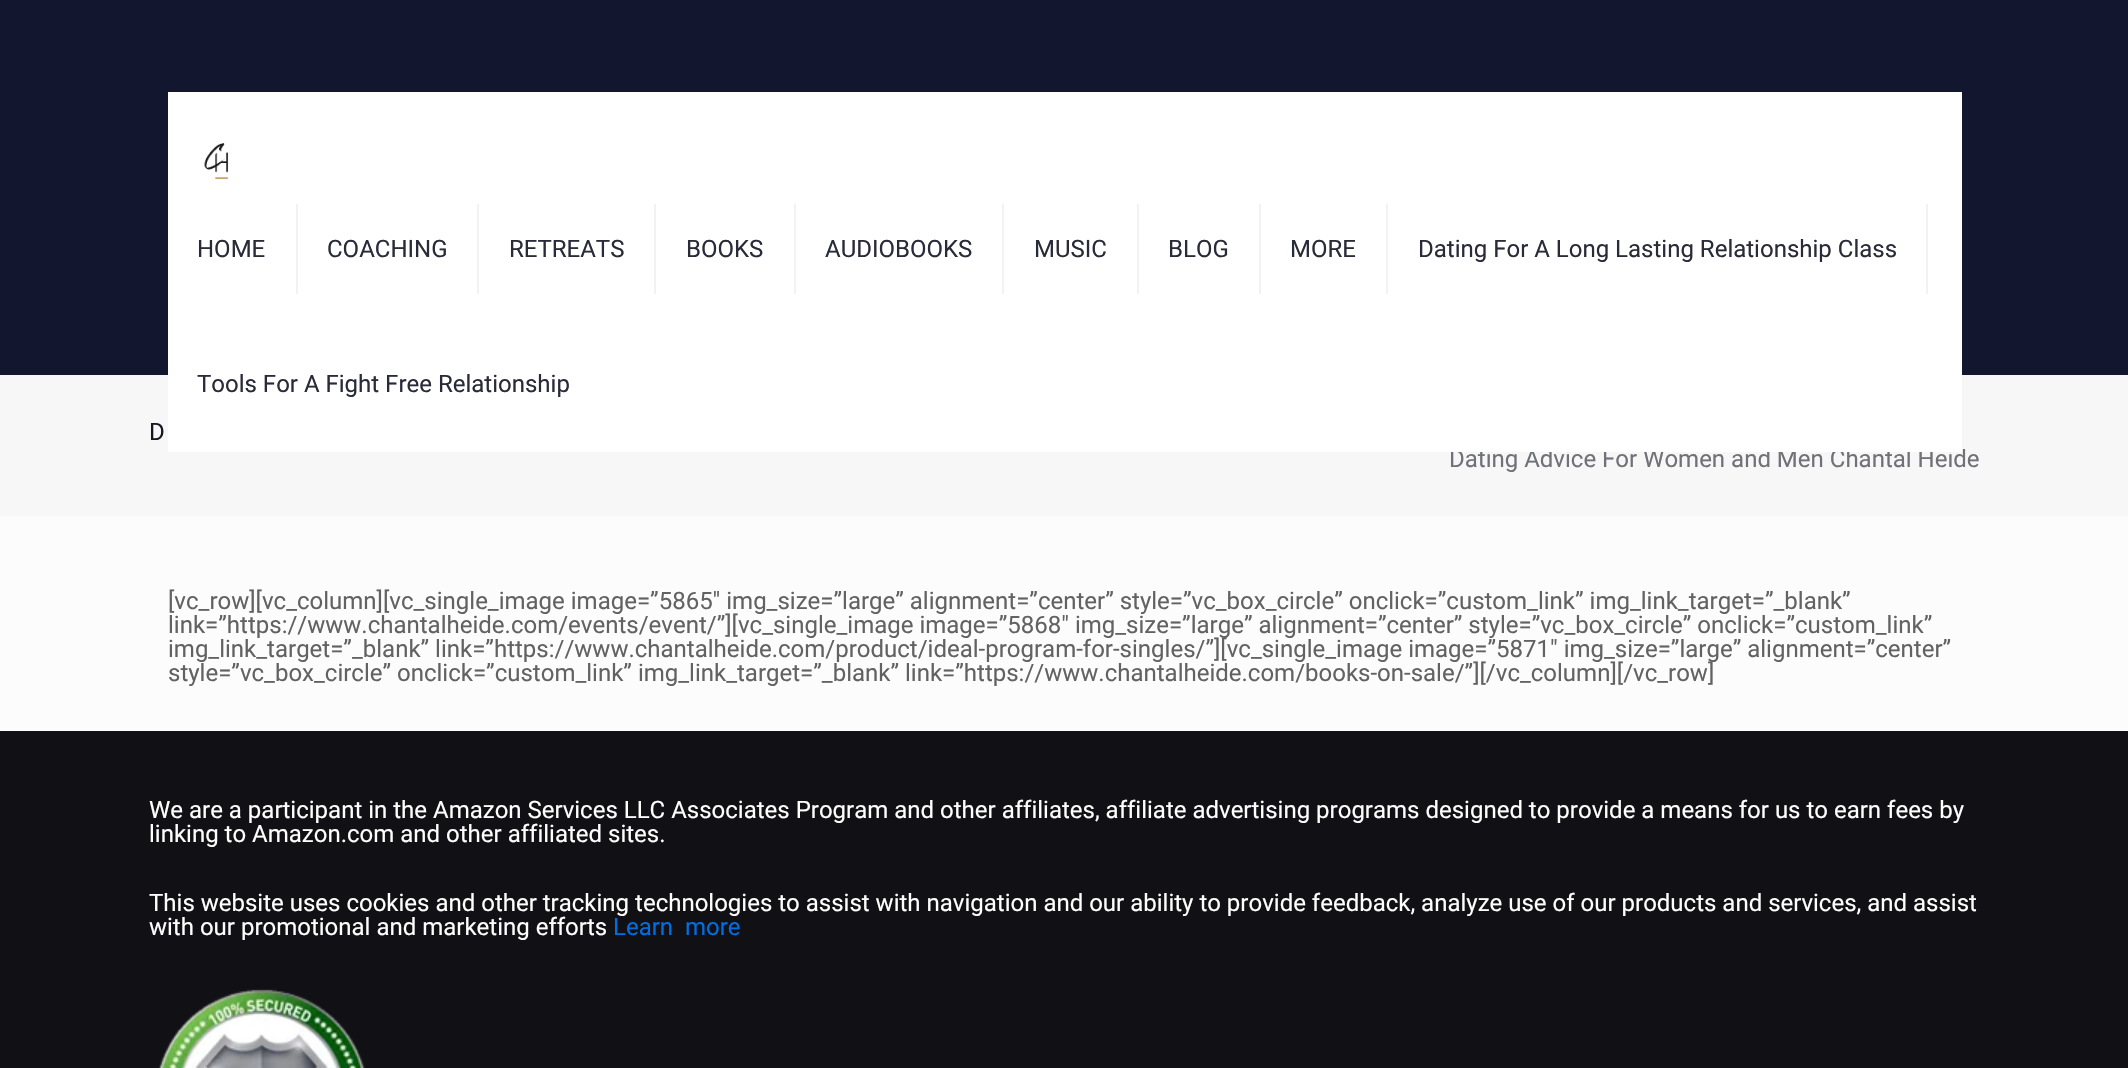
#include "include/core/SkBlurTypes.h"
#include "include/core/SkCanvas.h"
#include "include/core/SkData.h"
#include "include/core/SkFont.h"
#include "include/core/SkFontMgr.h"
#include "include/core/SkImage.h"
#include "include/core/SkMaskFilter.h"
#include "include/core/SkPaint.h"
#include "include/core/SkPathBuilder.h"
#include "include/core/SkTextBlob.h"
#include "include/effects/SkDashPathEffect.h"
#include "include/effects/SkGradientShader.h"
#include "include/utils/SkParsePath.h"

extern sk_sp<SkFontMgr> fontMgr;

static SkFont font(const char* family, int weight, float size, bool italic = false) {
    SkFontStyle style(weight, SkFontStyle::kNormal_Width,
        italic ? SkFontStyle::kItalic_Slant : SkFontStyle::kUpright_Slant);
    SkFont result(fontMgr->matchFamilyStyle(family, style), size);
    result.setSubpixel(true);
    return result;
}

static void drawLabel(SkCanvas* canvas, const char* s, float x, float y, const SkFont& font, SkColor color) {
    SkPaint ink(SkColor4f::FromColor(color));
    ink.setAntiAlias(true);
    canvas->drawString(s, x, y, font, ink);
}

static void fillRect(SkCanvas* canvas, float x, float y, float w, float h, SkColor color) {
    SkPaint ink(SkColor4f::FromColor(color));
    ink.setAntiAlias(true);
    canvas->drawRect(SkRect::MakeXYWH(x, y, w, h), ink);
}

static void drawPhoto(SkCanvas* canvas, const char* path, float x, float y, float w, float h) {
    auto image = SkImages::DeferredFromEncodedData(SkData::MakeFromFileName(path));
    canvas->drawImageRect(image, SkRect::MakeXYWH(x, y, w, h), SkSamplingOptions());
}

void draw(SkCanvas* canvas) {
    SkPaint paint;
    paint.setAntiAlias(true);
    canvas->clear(0xFFFCFCFC);
    fillRect(canvas, 0, 0, 2128, 375, 0xFF13162F);
    fillRect(canvas, 0, 375, 2128, 141, 0xFFF7F7F7);
    SkFont font1 = font("Roboto", 400, 24);
    drawLabel(canvas, "Dating Advice For Women and Men Chantal Heide", 1449, 467, font1, 0xFF707277);
    fillRect(canvas, 168, 92, 1794, 360, 0xFFFFFFFF);
    drawPhoto(canvas, "assets/img1.png", 204, 143, 25, 37);
    fillRect(canvas, 296, 204, 2, 90, 0xFFF2F2F2);
    drawLabel(canvas, "HOME", 197, 257, font1, 0xFF2A2B39);
    fillRect(canvas, 477, 204, 2, 90, 0xFFF2F2F2);
    drawLabel(canvas, "COACHING", 327, 257, font1, 0xFF2A2B39);
    fillRect(canvas, 654, 204, 2, 90, 0xFFF2F2F2);
    drawLabel(canvas, "RETREATS", 509, 257, font1, 0xFF2A2B39);
    fillRect(canvas, 794, 204, 2, 90, 0xFFF2F2F2);
    drawLabel(canvas, "BOOKS", 686, 257, font1, 0xFF2A2B39);
    fillRect(canvas, 1002, 204, 2, 90, 0xFFF2F2F2);
    drawLabel(canvas, "AUDIOBOOKS", 825, 257, font1, 0xFF2A2B39);
    fillRect(canvas, 1137, 204, 2, 90, 0xFFF2F2F2);
    drawLabel(canvas, "MUSIC", 1034, 257, font1, 0xFF2A2B39);
    fillRect(canvas, 1259, 204, 2, 90, 0xFFF2F2F2);
    drawLabel(canvas, "BLOG", 1168, 257, font1, 0xFF2A2B39);
    fillRect(canvas, 1386, 204, 2, 90, 0xFFF2F2F2);
    drawLabel(canvas, "MORE", 1290, 257, font1, 0xFF2A2B39);
    fillRect(canvas, 1926, 204, 2, 90, 0xFFF2F2F2);
    drawLabel(canvas, "Dating For A Long Lasting Relationship Class", 1418, 257, font1, 0xFF2A2B39);
    drawLabel(canvas, "Tools For A Fight Free Relationship", 197, 392, font1, 0xFF2A2B39);
    drawLabel(canvas, "D", 149, 440, font1, 0xFF161922);
    drawLabel(canvas, "[vc_row][vc_column][vc_single_image image=”5865″ img_size=”large” alignment=”center” style=”vc_box_circle” onclick=”custom_link” img_link_target=”_blank”", 168, 609, font1, 0xFF626262);
    drawLabel(canvas, "link=”https://www.chantalheide.com/events/event/”][vc_single_image image=”5868″ img_size=”large” alignment=”center” style=”vc_box_circle” onclick=”custom_link”", 168, 633, font1, 0xFF626262);
    drawLabel(canvas, "img_link_target=”_blank” link=”https://www.chantalheide.com/product/ideal-program-for-singles/”][vc_single_image image=”5871″ img_size=”large” alignment=”center”", 168, 657, font1, 0xFF626262);
    drawLabel(canvas, "style=”vc_box_circle” onclick=”custom_link” img_link_target=”_blank” link=”https://www.chantalheide.com/books-on-sale/”][/vc_column][/vc_row]", 168, 681, font1, 0xFF626262);
    fillRect(canvas, 0, 731, 2128, 337, 0xFF101015);
    drawLabel(canvas, "We are a participant in the Amazon Services LLC Associates Program and other affiliates, affiliate advertising programs designed to provide a means for us to earn fees by", 149, 818, font1, 0xFFFFFFFF);
    drawLabel(canvas, "linking to Amazon.com and other affiliated sites.", 149, 842, font1, 0xFFFFFFFF);
    drawLabel(canvas, "This website uses cookies and other tracking technologies to assist with navigation and our ability to provide feedback, analyze use of our products and services, and assist", 149, 911, font1, 0xFFFFFFFF);
    drawLabel(canvas, "with our promotional and marketing efforts", 149, 935, font1, 0xFFFFFFFF);
    drawLabel(canvas, "Learn  more", 613, 935, font1, 0xFF006EDF);
    drawPhoto(canvas, "assets/img2.png", 158, 989, 207, 79);
}
